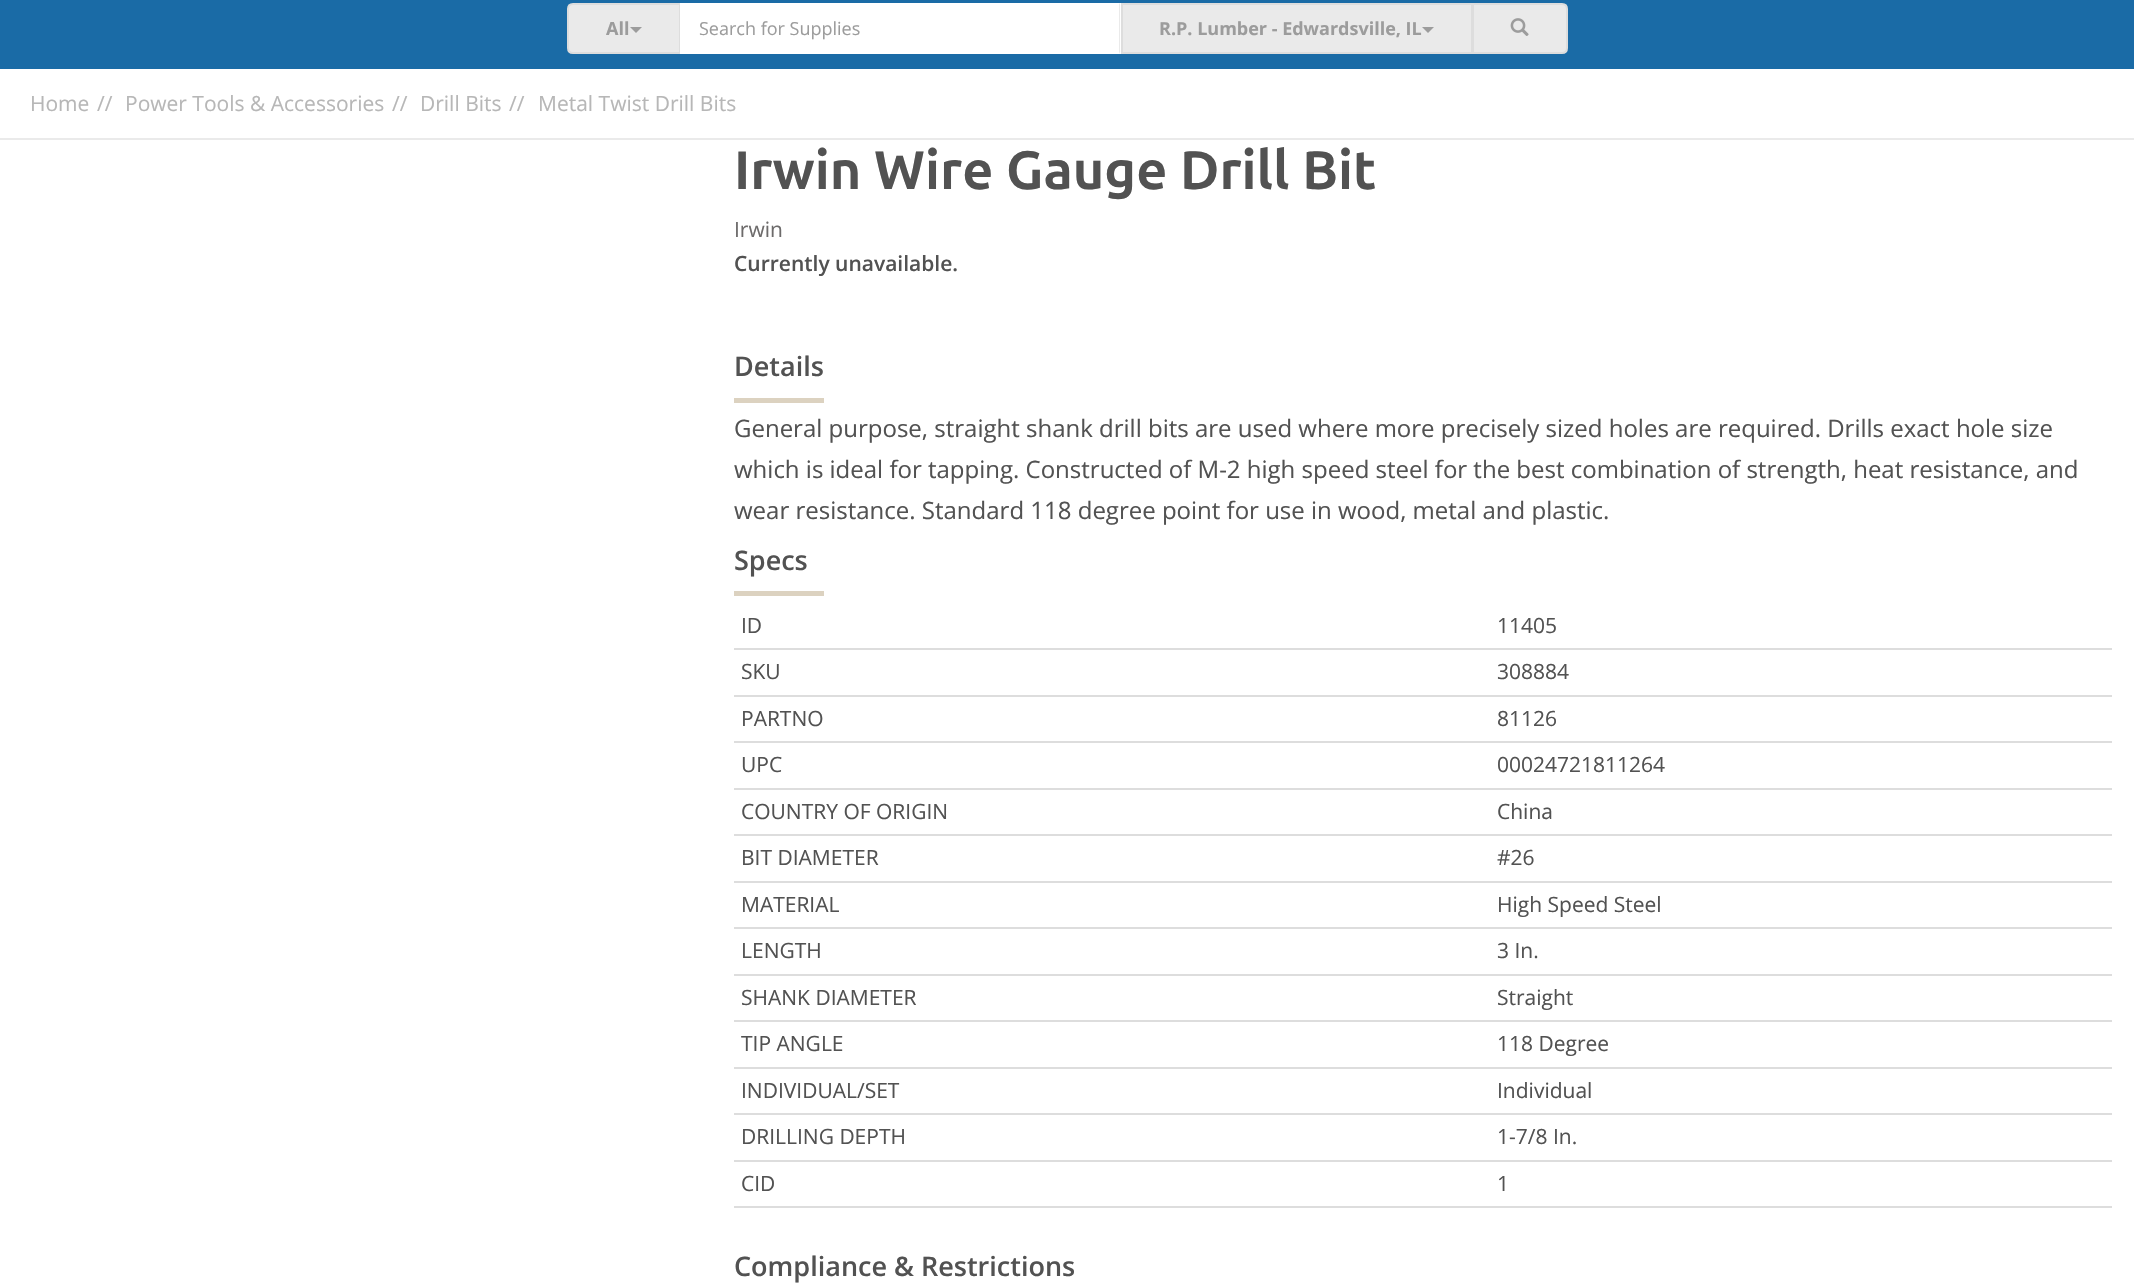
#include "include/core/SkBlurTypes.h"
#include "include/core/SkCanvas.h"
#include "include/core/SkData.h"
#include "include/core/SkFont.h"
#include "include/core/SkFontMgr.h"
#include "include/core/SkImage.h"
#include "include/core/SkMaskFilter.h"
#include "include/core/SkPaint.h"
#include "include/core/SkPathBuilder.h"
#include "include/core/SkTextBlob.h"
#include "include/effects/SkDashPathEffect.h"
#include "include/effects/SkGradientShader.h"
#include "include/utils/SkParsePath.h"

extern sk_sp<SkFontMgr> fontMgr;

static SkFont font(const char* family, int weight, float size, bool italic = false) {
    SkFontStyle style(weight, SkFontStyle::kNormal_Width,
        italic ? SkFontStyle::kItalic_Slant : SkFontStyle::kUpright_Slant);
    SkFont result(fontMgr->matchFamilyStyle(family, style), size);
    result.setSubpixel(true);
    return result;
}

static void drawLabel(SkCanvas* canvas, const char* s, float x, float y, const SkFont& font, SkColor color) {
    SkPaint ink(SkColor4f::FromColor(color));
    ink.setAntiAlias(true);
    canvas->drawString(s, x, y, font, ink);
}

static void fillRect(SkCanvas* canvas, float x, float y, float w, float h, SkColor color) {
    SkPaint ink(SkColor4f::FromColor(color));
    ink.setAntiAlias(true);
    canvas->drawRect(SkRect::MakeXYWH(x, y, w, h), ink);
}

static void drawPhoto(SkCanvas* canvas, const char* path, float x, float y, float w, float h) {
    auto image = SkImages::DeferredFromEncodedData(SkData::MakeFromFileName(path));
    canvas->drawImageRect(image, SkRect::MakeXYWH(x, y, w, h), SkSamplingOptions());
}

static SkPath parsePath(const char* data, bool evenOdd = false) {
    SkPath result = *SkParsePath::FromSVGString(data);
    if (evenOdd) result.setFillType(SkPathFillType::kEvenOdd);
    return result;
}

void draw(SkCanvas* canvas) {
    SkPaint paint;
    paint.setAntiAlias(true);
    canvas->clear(0xFFFFFFFF);
    fillRect(canvas, 0, 0, 2134, 69, 0xFF1A6BA6);
    paint.setColor(0xFFEAEAEA);
    canvas->drawPath(parsePath("M573 4H680V53H573C570 53 568 51 568 48V9C568 6 570 4 573 4Z"), paint);
    paint.setStroke(true);
    paint.setStrokeWidth(2);
    paint.setColor(0xFFDDDDDD);
    canvas->drawPath(parsePath("M573 4H680V53H573C570 53 568 51 568 48V9C568 6 570 4 573 4Z"), paint);
    SkFont font1 = font("Open Sans", 700, 18);
    drawLabel(canvas, "All", 606, 35, font1, 0xFF9C9C9C);
    paint.setStroke(false);
    paint.setColor(0xFF9C9C9C);
    canvas->drawPath(parsePath("M630 27H642L636 33Z"), paint);
    fillRect(canvas, 680, 3, 441, 51, 0xFFFFFFFF);
    paint.setColor(0xFFEAEAEA);
    canvas->drawPath(parsePath("M1120 3V54L1119 52V4Z"), paint);
    SkFont font2 = font("Open Sans", 400, 18);
    drawLabel(canvas, "Search for Supplies", 699, 35, font2, 0xFF9C9C9C);
    canvas->drawRect(SkRect::MakeXYWH(1122, 4, 350, 49), paint);
    paint.setStroke(true);
    paint.setColor(0xFFDDDDDD);
    canvas->drawRect(SkRect::MakeXYWH(1122, 4, 350, 49), paint);
    drawLabel(canvas, "R.P. Lumber - Edwardsville, IL", 1159, 35, font1, 0xFF9C9C9C);
    paint.setStroke(false);
    paint.setColor(0xFF9C9C9C);
    canvas->drawPath(parsePath("M1422 27H1434L1428 33Z"), paint);
    paint.setColor(0xFFEAEAEA);
    canvas->drawPath(parsePath("M1473 4H1562C1565 4 1567 6 1567 9V48C1567 51 1565 53 1562 53H1473Z"), paint);
    paint.setStroke(true);
    paint.setColor(0xFFDDDDDD);
    canvas->drawPath(parsePath("M1473 4H1562C1565 4 1567 6 1567 9V48C1567 51 1565 53 1562 53H1473Z"), paint);
    drawPhoto(canvas, "assets/img1.png", 1510, 18, 19, 18);
    fillRect(canvas, 0, 138, 2134, 2, 0xFFEAEAEA);
    SkFont font3 = font("Open Sans", 400, 21);
    drawLabel(canvas, "Home", 30, 111, font3, 0xFFB7B7B7);
    drawLabel(canvas, "//", 97, 111, font3, 0xFFB7B7B7);
    drawLabel(canvas, "Power Tools & Accessories", 125, 111, font3, 0xFFB7B7B7);
    drawLabel(canvas, "//", 392, 111, font3, 0xFFB7B7B7);
    drawLabel(canvas, "Drill Bits", 420, 111, font3, 0xFFB7B7B7);
    drawLabel(canvas, "//", 509, 111, font3, 0xFFB7B7B7);
    drawLabel(canvas, "Metal Twist Drill Bits", 538, 111, font3, 0xFFB7B7B7);
    SkFont font4 = font("Ubuntu", 700, 54);
    drawLabel(canvas, "Irwin Wire Gauge Drill Bit", 734, 189, font4, 0xFF525252);
    drawLabel(canvas, "Irwin", 734, 237, font3, 0xFF6D6B6B);
    SkFont font5 = font("Open Sans", 600, 21);
    drawLabel(canvas, "Currently unavailable.", 734, 271, font5, 0xFF525252);
    SkFont font6 = font("Open Sans", 600, 27);
    drawLabel(canvas, "Details", 734, 376, font6, 0xFF525252);
    fillRect(canvas, 734, 398, 90, 5, 0xFFDCD2C0);
    SkFont font7 = font("Open Sans", 400, 24);
    drawLabel(canvas, "General purpose, straight shank drill bits are used where more precisely sized holes are required. Drills exact hole size", 734, 437, font7, 0xFF525252);
    drawLabel(canvas, "which is ideal for tapping. Constructed of M-2 high speed steel for the best combination of strength, heat resistance, and", 734, 478, font7, 0xFF525252);
    drawLabel(canvas, "wear resistance. Standard 118 degree point for use in wood, metal and plastic.", 734, 519, font7, 0xFF525252);
    drawLabel(canvas, "Specs", 734, 570, font6, 0xFF525252);
    fillRect(canvas, 734, 591, 90, 5, 0xFFDCD2C0);
    drawLabel(canvas, "ID", 741, 633, font3, 0xFF525252);
    fillRect(canvas, 734, 648, 1378, 2, 0xFFDDDDDD);
    drawLabel(canvas, "11405", 1497, 633, font3, 0xFF525252);
    drawLabel(canvas, "SKU", 741, 679, font3, 0xFF525252);
    fillRect(canvas, 734, 695, 1378, 2, 0xFFDDDDDD);
    drawLabel(canvas, "308884", 1497, 679, font3, 0xFF525252);
    drawLabel(canvas, "PARTNO", 741, 726, font3, 0xFF525252);
    fillRect(canvas, 734, 741, 1378, 2, 0xFFDDDDDD);
    drawLabel(canvas, "81126", 1497, 726, font3, 0xFF525252);
    drawLabel(canvas, "UPC", 741, 772, font3, 0xFF525252);
    fillRect(canvas, 734, 788, 1378, 2, 0xFFDDDDDD);
    drawLabel(canvas, "00024721811264", 1497, 772, font3, 0xFF525252);
    drawLabel(canvas, "COUNTRY OF ORIGIN", 741, 819, font3, 0xFF525252);
    fillRect(canvas, 734, 834, 1378, 2, 0xFFDDDDDD);
    drawLabel(canvas, "China", 1497, 819, font3, 0xFF525252);
    drawLabel(canvas, "BIT DIAMETER", 741, 865, font3, 0xFF525252);
    fillRect(canvas, 734, 881, 1378, 2, 0xFFDDDDDD);
    drawLabel(canvas, "#26", 1497, 865, font3, 0xFF525252);
    drawLabel(canvas, "MATERIAL", 741, 912, font3, 0xFF525252);
    fillRect(canvas, 734, 927, 1378, 2, 0xFFDDDDDD);
    drawLabel(canvas, "High Speed Steel", 1497, 912, font3, 0xFF525252);
    drawLabel(canvas, "LENGTH", 741, 958, font3, 0xFF525252);
    fillRect(canvas, 734, 974, 1378, 2, 0xFFDDDDDD);
    drawLabel(canvas, "3 In.", 1497, 958, font3, 0xFF525252);
    drawLabel(canvas, "SHANK DIAMETER", 741, 1005, font3, 0xFF525252);
    fillRect(canvas, 734, 1020, 1378, 2, 0xFFDDDDDD);
    drawLabel(canvas, "Straight", 1497, 1005, font3, 0xFF525252);
    drawLabel(canvas, "TIP ANGLE", 741, 1051, font3, 0xFF525252);
    fillRect(canvas, 734, 1067, 1378, 2, 0xFFDDDDDD);
    drawLabel(canvas, "118 Degree", 1497, 1051, font3, 0xFF525252);
    drawLabel(canvas, "INDIVIDUAL/SET", 741, 1098, font3, 0xFF525252);
    fillRect(canvas, 734, 1113, 1378, 2, 0xFFDDDDDD);
    drawLabel(canvas, "Individual", 1497, 1098, font3, 0xFF525252);
    drawLabel(canvas, "DRILLING DEPTH", 741, 1144, font3, 0xFF525252);
    fillRect(canvas, 734, 1160, 1378, 2, 0xFFDDDDDD);
    drawLabel(canvas, "1-7/8 In.", 1497, 1144, font3, 0xFF525252);
    drawLabel(canvas, "CID", 741, 1191, font3, 0xFF525252);
    fillRect(canvas, 734, 1206, 1378, 2, 0xFFDDDDDD);
    drawLabel(canvas, "1", 1497, 1191, font3, 0xFF525252);
    drawLabel(canvas, "Compliance & Restrictions", 734, 1276, font6, 0xFF525252);
}
